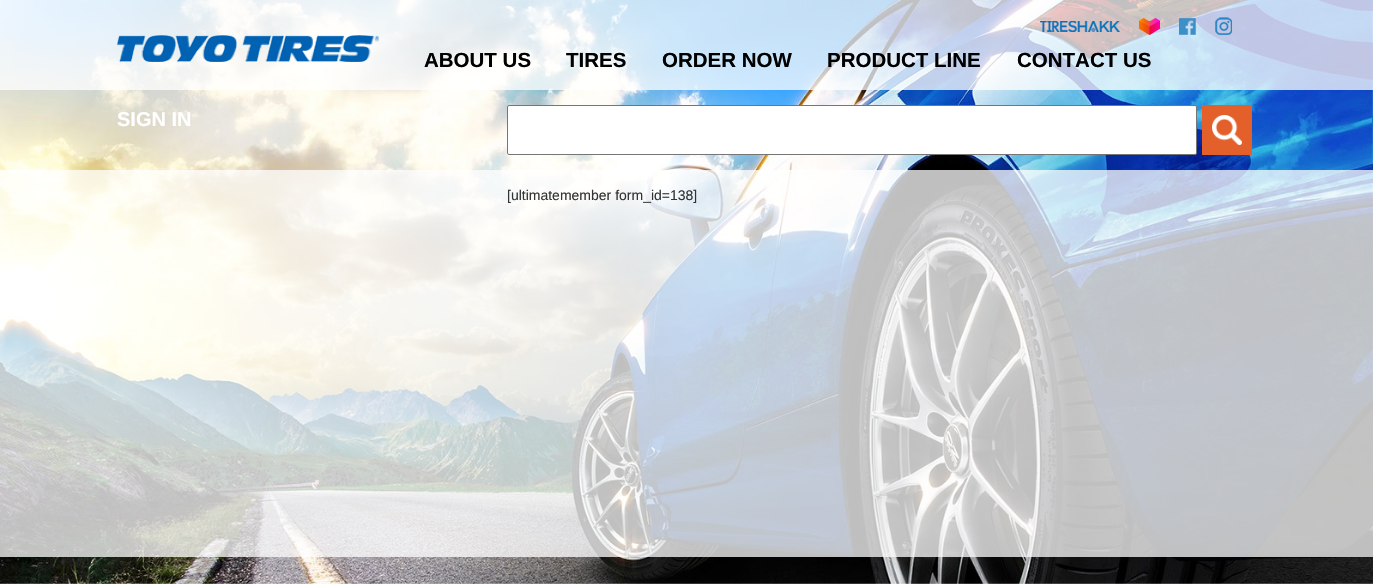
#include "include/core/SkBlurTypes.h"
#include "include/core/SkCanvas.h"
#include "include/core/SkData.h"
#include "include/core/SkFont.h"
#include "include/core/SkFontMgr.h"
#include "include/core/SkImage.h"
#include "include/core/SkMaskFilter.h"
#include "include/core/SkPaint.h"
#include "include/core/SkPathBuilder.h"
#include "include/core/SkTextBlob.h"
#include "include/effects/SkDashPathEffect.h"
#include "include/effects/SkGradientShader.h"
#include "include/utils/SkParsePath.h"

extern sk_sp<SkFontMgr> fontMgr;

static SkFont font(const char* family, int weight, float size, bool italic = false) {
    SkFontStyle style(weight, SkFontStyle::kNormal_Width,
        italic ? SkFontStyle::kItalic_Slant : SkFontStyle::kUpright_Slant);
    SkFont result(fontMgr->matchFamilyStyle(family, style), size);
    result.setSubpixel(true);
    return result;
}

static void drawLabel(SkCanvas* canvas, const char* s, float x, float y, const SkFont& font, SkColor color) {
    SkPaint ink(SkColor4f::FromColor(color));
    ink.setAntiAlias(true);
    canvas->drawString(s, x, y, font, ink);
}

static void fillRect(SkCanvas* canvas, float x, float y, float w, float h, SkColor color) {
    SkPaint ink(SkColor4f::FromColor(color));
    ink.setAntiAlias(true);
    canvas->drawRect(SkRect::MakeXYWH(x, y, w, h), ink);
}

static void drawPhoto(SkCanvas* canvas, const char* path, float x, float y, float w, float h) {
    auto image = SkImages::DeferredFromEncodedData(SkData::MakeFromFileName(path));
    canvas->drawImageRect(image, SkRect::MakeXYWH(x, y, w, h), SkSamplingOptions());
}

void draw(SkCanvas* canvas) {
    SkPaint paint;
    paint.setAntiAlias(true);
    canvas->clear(0xFFFFFFFF);
    drawPhoto(canvas, "assets/img1.png", 0, 0, 1373, 584);
    fillRect(canvas, 0, 0, 1373, 90, 0xBFFFFFFF);
    drawPhoto(canvas, "assets/img2.png", 117, 35, 262, 27);
    drawPhoto(canvas, "assets/img3.png", 1040, 21, 80, 11);
    drawPhoto(canvas, "assets/img4.png", 1139, 18, 21, 17);
    drawPhoto(canvas, "assets/img5.png", 1179, 18, 17, 17);
    drawPhoto(canvas, "assets/img6.png", 1215, 17, 17, 18);
    SkFont font1 = font("Liberation Sans", 700, 20.5f);
    drawLabel(canvas, "ABOUT US", 424, 67, font1, 0xFF000000);
    drawLabel(canvas, "TIRES", 566, 67, font1, 0xFF000000);
    drawLabel(canvas, "ORDER NOW", 662, 67, font1, 0xFF000000);
    drawLabel(canvas, "PRODUCT LINE", 827, 67, font1, 0xFF000000);
    drawLabel(canvas, "CONTACT US", 1017, 67, font1, 0xFF000000);
    SkFont font2 = font("Liberation Sans", 700, 20);
    drawLabel(canvas, "SIGN IN", 117, 126, font2, 0xFFFFFFFF);
    paint.setColor(0xFFFFFFFF);
    canvas->drawRoundRect(SkRect::MakeXYWH(507.5f, 105.5f, 689, 49), 1.5f, 1.5f, paint);
    paint.setStroke(true);
    paint.setStrokeWidth(1);
    paint.setColor(0xFF767676);
    canvas->drawRoundRect(SkRect::MakeXYWH(507.5f, 105.5f, 689, 49), 1.5f, 1.5f, paint);
    fillRect(canvas, 1202, 105, 50, 50, 0xFFE3602A);
    drawPhoto(canvas, "assets/img7.png", 1212, 115, 30, 30);
    fillRect(canvas, 0, 170, 1373, 387, 0xBFFFFFFF);
    SkFont font3 = font("Liberation Sans", 400, 14);
    drawLabel(canvas, "[ultimatemember form_id=138]", 507, 200, font3, 0xFF333333);
}
